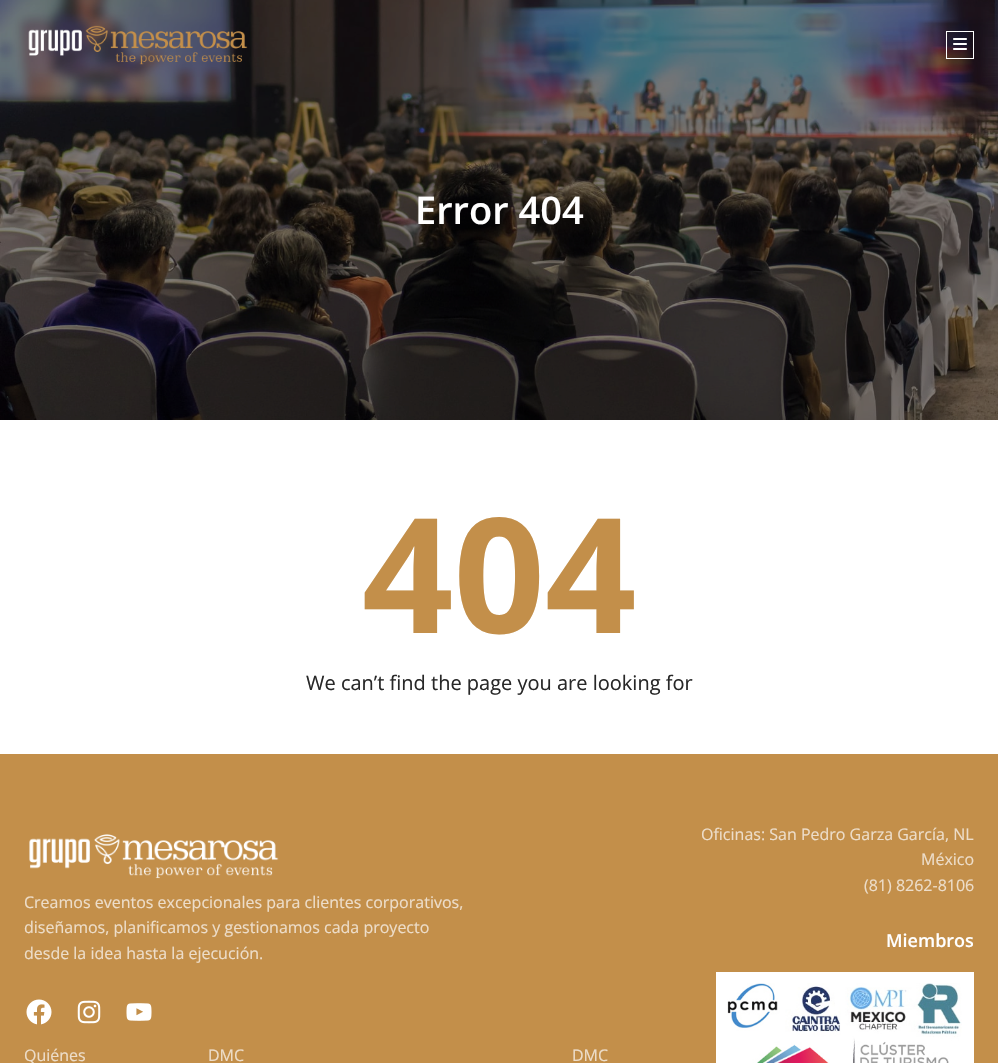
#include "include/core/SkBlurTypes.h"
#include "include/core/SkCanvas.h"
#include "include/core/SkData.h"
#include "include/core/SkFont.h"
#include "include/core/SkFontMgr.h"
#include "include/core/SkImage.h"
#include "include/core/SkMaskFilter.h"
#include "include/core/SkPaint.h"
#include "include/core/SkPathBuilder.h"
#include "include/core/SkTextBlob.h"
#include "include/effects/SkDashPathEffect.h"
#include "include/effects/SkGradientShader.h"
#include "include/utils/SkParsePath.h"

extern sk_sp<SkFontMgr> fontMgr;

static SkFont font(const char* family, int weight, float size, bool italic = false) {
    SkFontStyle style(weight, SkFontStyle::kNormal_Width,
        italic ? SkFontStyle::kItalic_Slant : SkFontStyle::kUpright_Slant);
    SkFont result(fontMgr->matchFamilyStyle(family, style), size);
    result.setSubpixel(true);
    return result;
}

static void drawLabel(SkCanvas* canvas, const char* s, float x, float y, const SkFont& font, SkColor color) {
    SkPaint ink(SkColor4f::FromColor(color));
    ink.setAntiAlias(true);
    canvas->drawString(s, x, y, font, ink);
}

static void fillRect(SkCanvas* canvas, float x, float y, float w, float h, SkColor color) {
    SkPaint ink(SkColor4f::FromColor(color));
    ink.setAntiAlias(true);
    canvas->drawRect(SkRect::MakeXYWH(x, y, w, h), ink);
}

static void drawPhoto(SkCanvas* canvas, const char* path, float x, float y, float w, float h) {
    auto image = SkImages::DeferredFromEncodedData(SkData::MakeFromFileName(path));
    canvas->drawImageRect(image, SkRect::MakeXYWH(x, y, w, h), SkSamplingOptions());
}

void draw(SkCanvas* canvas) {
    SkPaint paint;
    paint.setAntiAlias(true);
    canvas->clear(0xFFFFFFFF);
    drawPhoto(canvas, "assets/img3.png", 0, 0, 998, 420);
    drawPhoto(canvas, "assets/img1.png", 28, 25, 220, 40);
    paint.setStroke(true);
    paint.setStrokeWidth(1);
    paint.setColor(0xFFFFFFFF);
    canvas->drawRect(SkRect::MakeXYWH(946.5f, 31.5f, 27, 27), paint);
    drawPhoto(canvas, "assets/img2.png", 953, 38, 14, 12);
    SkFont font1 = font("Open Sans", 600, 38);
    drawLabel(canvas, "Error 404", 415, 224, font1, 0xFFFFFFFF);
    SkFont font2 = font("Open Sans", 700, 160);
    drawLabel(canvas, "404", 362, 633, font2, 0xFFC38F4A);
    SkFont font3 = font("Open Sans", 400, 20);
    drawLabel(canvas, "We can’t find the page you are looking for", 306, 690, font3, 0xFF282828);
    fillRect(canvas, 0, 754, 998, 309, 0xFFC38F4A);
    drawPhoto(canvas, "assets/img4.png", 29, 834, 250, 45);
    SkFont font4 = font("Open Sans", 400, 16);
    drawLabel(canvas, "Creamos eventos excepcionales para clientes corporativos,", 24, 908, font4, 0xFFEDDDC9);
    drawLabel(canvas, "diseñamos, planificamos y gestionamos cada proyecto", 24, 933, font4, 0xFFEDDDC9);
    drawLabel(canvas, "desde la idea hasta la ejecución.", 24, 959, font4, 0xFFEDDDC9);
    drawPhoto(canvas, "assets/img5.png", 26, 999, 26, 26);
    drawPhoto(canvas, "assets/img6.png", 77, 1000, 24, 24);
    drawPhoto(canvas, "assets/img7.png", 126, 1003, 26, 18);
    drawLabel(canvas, "Quiénes", 24, 1061, font4, 0xFFEDDDC9);
    drawLabel(canvas, "DMC", 208, 1061, font4, 0xFFEDDDC9);
    drawLabel(canvas, "DMC", 572, 1061, font4, 0xFFEDDDC9);
    drawLabel(canvas, "Oficinas: San Pedro Garza García, NL", 701, 840, font4, 0xFFEDDDC9);
    drawLabel(canvas, "México", 921, 865, font4, 0xFFEDDDC9);
    drawLabel(canvas, "(81) 8262-8106", 864, 891, font4, 0xFFEDDDC9);
    SkFont font5 = font("Open Sans", 600, 18);
    drawLabel(canvas, "Miembros", 886, 947, font5, 0xFFFFFFFF);
    fillRect(canvas, 716, 972, 258, 91, 0xFFFFFFFF);
    drawPhoto(canvas, "assets/img8.png", 727, 983, 235, 80);
}
